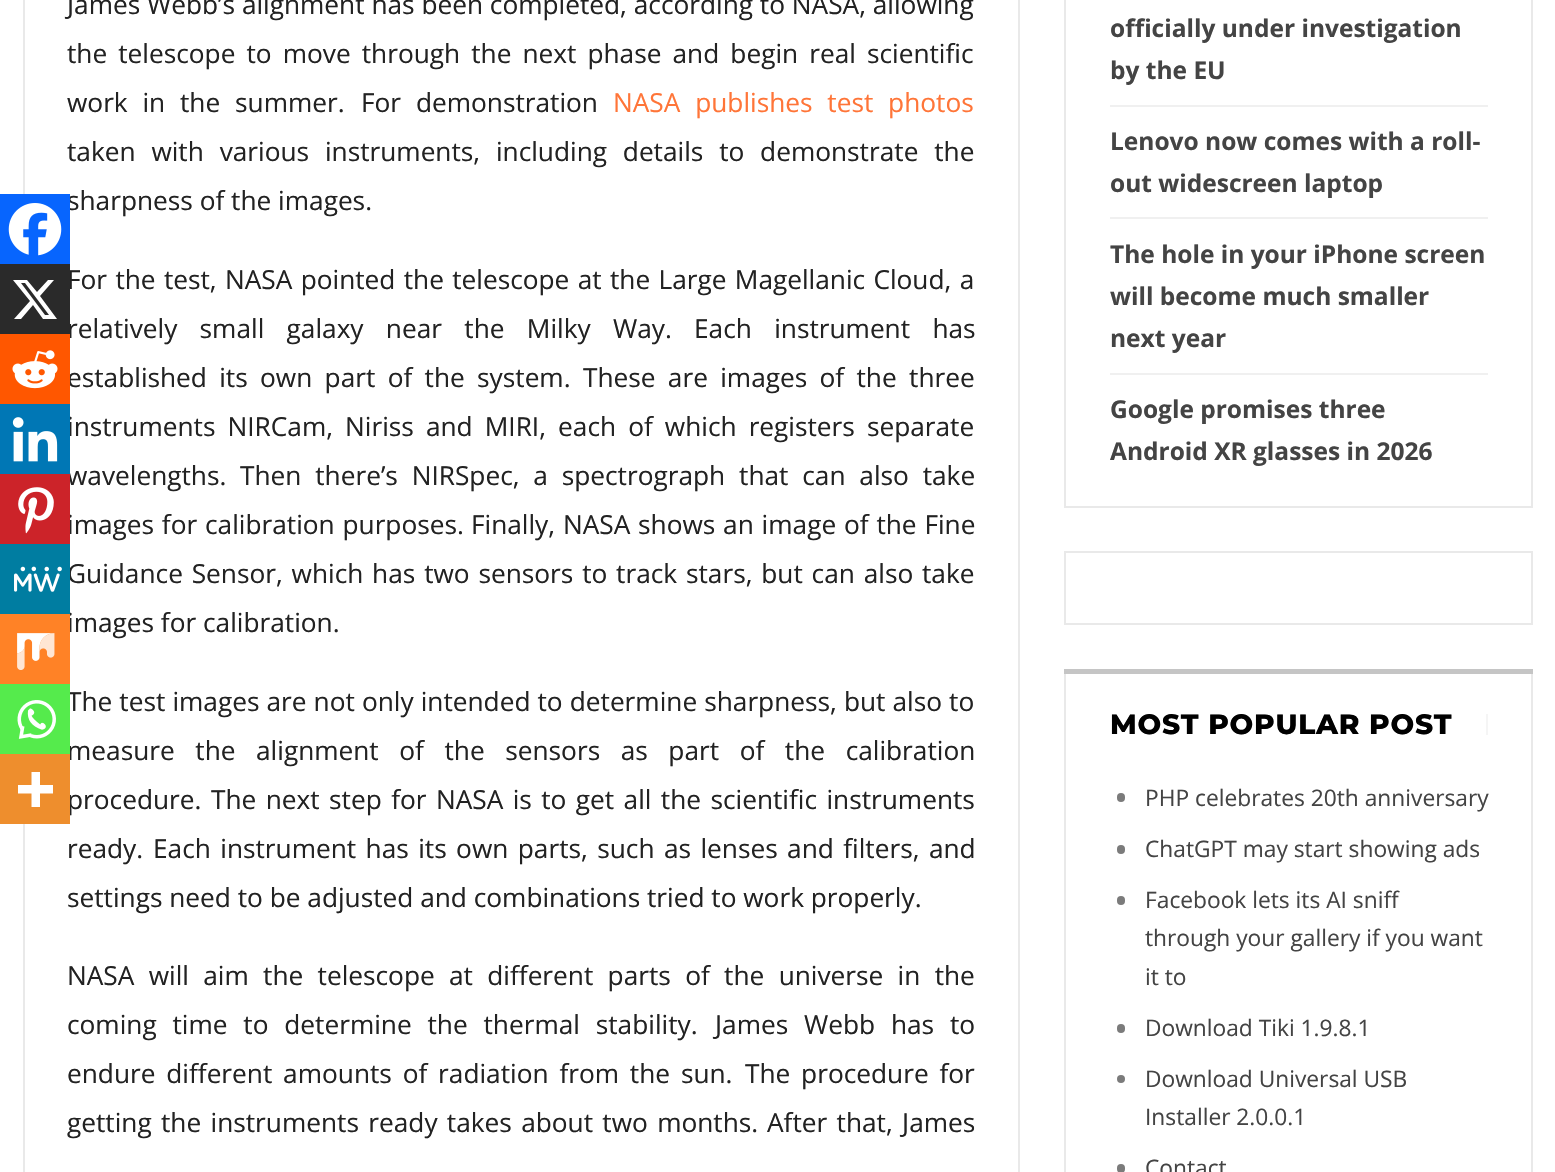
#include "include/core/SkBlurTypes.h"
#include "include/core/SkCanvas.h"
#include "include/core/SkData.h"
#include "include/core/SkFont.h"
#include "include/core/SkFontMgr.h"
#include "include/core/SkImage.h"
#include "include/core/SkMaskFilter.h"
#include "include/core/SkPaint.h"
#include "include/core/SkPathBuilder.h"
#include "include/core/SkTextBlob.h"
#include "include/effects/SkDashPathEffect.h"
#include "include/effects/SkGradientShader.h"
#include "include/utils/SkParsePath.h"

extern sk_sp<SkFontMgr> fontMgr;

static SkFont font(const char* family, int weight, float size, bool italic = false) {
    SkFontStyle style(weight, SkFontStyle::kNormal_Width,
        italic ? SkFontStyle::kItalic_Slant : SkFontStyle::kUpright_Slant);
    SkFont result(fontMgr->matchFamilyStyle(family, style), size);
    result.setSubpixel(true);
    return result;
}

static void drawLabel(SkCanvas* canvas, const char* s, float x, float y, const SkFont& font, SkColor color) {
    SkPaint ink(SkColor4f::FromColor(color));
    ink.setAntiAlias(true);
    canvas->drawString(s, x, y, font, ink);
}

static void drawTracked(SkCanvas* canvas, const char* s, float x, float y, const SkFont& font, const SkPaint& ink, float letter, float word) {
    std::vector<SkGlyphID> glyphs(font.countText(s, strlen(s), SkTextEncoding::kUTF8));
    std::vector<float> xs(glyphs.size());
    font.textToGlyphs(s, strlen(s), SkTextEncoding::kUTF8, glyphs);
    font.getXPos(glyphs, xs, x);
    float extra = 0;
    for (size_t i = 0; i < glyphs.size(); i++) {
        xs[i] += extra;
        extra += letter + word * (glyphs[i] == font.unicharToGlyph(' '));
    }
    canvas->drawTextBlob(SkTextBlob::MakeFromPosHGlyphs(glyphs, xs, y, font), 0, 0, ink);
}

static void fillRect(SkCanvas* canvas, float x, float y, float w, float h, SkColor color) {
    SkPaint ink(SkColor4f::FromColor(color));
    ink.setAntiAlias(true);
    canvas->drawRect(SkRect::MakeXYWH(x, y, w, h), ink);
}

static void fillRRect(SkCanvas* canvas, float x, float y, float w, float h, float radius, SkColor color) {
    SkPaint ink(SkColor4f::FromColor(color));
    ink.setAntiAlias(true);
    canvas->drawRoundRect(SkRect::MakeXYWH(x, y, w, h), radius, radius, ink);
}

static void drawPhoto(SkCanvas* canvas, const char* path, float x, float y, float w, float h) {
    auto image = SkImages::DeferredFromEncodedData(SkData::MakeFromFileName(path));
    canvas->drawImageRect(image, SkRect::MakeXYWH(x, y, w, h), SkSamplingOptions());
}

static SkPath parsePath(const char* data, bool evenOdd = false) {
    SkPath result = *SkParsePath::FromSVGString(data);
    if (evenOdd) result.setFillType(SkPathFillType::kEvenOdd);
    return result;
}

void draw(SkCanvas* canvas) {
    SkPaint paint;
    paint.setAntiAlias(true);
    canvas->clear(0xFFFFFFFF);
    paint.setStroke(true);
    paint.setStrokeWidth(2);
    paint.setColor(0xFFE9E9E9);
    canvas->drawRect(SkRect::MakeXYWH(24, -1, 995, 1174), paint);
    SkFont font1 = font("Open Sans", 400, 26.25f);
    drawLabel(canvas, "sharpness of the images.", 67, 210, font1, 0xFF222222);
    fillRect(canvas, 0, 194, 70, 70, 0xFF0765FE);
    drawPhoto(canvas, "assets/img1.png", 8, 203, 54, 53);
    paint.setStroke(false);
    paint.setColor(0xFF222222);
    drawTracked(canvas, "For the test, NASA pointed the telescope at the Large Magellanic Cloud, a", 67, 289, font1, paint, 0, 1.5f);
    drawTracked(canvas, "relatively small galaxy near the Milky Way.", 67, 338, font1, paint, 0, 15.5f);
    fillRect(canvas, 0, 264, 70, 70, 0xFF2A2A2A);
    paint.setColor(0xFFFFFFFF);
    canvas->drawPath(parsePath("M48 280H54L40 296L57 319H43L33 305L21 319H14L30 301L13 280H27L37 292ZM45 315H49L25 283H21Z"), paint);
    paint.setColor(0xFF222222);
    drawTracked(canvas, "established its own part of the system.", 67, 387, font1, paint, 0, 5.5f);
    fillRect(canvas, 0, 334, 70, 70, 0xFFFF5700);
    drawPhoto(canvas, "assets/img2.png", 12, 350, 46, 39);
    drawTracked(canvas, "instruments NIRCam, Niriss and MIRI, each of which registers separate", 67, 436, font1, paint, 0, 5.25f);
    drawLabel(canvas, "wavelengths.", 67, 485, font1, 0xFF222222);
    fillRect(canvas, 0, 404, 70, 70, 0xFF0077B5);
    drawPhoto(canvas, "assets/img3.png", 12, 417, 46, 45);
    drawTracked(canvas, "images for calibration purposes.", 67, 534, font1, paint, 0, 1);
    fillRect(canvas, 0, 474, 70, 70, 0xFFCC2329);
    drawPhoto(canvas, "assets/img4.png", 18, 487, 36, 47);
    drawTracked(canvas, "Guidance Sensor, which has two sensors to track stars, but can also take", 67, 583, font1, paint, 0, 2);
    drawLabel(canvas, "images for calibration.", 67, 632, font1, 0xFF222222);
    fillRect(canvas, 0, 544, 70, 70, 0xFF007DA1);
    drawPhoto(canvas, "assets/img5.png", 14, 566, 48, 26);
    fillRect(canvas, 0, 614, 70, 70, 0xFFFF8226);
    drawPhoto(canvas, "assets/img6.png", 17, 633, 38, 37);
    drawTracked(canvas, "The test images are not only intended to determine sharpness, but also to", 67, 711, font1, paint, 0, 0.25f);
    drawTracked(canvas, "measure the alignment of the sensors as part of the calibration", 67, 760, font1, paint, 0, 13.75f);
    fillRect(canvas, 0, 684, 70, 70, 0xFF55EB4C);
    drawPhoto(canvas, "assets/img7.png", 17, 700, 39, 39);
    drawLabel(canvas, "procedure.", 67, 809, font1, 0xFF222222);
    fillRect(canvas, 0, 754, 70, 70, 0xFFEE8E2D);
    paint.setColor(0xFFFFFFFF);
    canvas->drawPath(parsePath("M40 785V772H31.5V785H18V793.5H31.5V807H40V793.5H53V785Z", true), paint);
    drawLabel(canvas, "James Webb’s alignment has been completed, according to NASA, allowing", 67, 14, font1, 0xFF222222);
    paint.setColor(0xFF222222);
    drawTracked(canvas, "the telescope to move through the next phase and begin real scientific", 67, 63, font1, paint, 0, 4.25f);
    drawTracked(canvas, "work in the summer.", 67, 112, font1, paint, 0, 8);
    drawTracked(canvas, "For demonstration", 361, 112, font1, paint, 0, 8);
    paint.setColor(0xFFFF7538);
    drawTracked(canvas, "NASA publishes test photos", 613, 112, font1, paint, 0, 8);
    paint.setColor(0xFF222222);
    drawTracked(canvas, "taken with various instruments, including details to demonstrate the", 67, 161, font1, paint, 0, 9);
    drawTracked(canvas, "Each instrument has", 694, 338, font1, paint, 0, 15.5f);
    drawTracked(canvas, "These are images of the three", 583, 387, font1, paint, 0, 5.5f);
    drawTracked(canvas, "Then there’s NIRSpec, a spectrograph that can also take", 240, 485, font1, paint, 0, 7);
    drawTracked(canvas, "Finally, NASA shows an image of the Fine", 471, 534, font1, paint, 0, 1);
    drawTracked(canvas, "The next step for NASA is to get all the scientific instruments", 211, 809, font1, paint, 0, 2.6f);
    drawLabel(canvas, "ready.", 67, 858, font1, 0xFF222222);
    drawTracked(canvas, "Each instrument has its own parts, such as lenses and filters, and", 153, 858, font1, paint, 0, 2.6f);
    drawLabel(canvas, "settings need to be adjusted and combinations tried to work properly.", 67, 907, font1, 0xFF222222);
    drawTracked(canvas, "NASA will aim the telescope at different parts of the universe in the", 67, 985, font1, paint, 0, 7.5f);
    drawTracked(canvas, "coming time to determine the thermal stability.", 67, 1034, font1, paint, 0, 9);
    drawTracked(canvas, "James Webb has to", 715, 1034, font1, paint, 0, 9);
    drawTracked(canvas, "endure different amounts of radiation from the sun.", 67, 1083, font1, paint, 0, 4);
    drawTracked(canvas, "The procedure for", 745, 1083, font1, paint, 0, 4);
    drawTracked(canvas, "getting the instruments ready takes about two months.", 67, 1132, font1, paint, 0, 2.5f);
    drawTracked(canvas, "After that, James", 767, 1132, font1, paint, 0, 2.5f);
    paint.setStroke(true);
    paint.setColor(0xFFE9E9E9);
    canvas->drawRect(SkRect::MakeXYWH(1065, -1, 467, 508), paint);
    fillRect(canvas, 1110, 105, 378, 2, 0xFFF0F0F0);
    SkFont font2 = font("Open Sans", 700, 24.5f);
    drawLabel(canvas, "officially under investigation", 1110, 37, font2, 0xFF444444);
    drawLabel(canvas, "by the EU", 1110, 79, font2, 0xFF444444);
    fillRect(canvas, 1110, 217, 378, 2, 0xFFF0F0F0);
    drawLabel(canvas, "Lenovo now comes with a roll-", 1110, 150, font2, 0xFF444444);
    drawLabel(canvas, "out widescreen laptop", 1110, 192, font2, 0xFF444444);
    fillRect(canvas, 1110, 373, 378, 2, 0xFFF0F0F0);
    drawLabel(canvas, "The hole in your iPhone screen", 1110, 263, font2, 0xFF444444);
    drawLabel(canvas, "will become much smaller", 1110, 305, font2, 0xFF444444);
    drawLabel(canvas, "next year", 1110, 347, font2, 0xFF444444);
    drawLabel(canvas, "Google promises three", 1110, 418, font2, 0xFF444444);
    drawLabel(canvas, "Android XR glasses in 2026", 1110, 460, font2, 0xFF444444);
    canvas->drawRect(SkRect::MakeXYWH(1065, 552, 467, 72), paint);
    canvas->drawRect(SkRect::MakeXYWH(1065, 670, 467, 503), paint);
    fillRect(canvas, 1064, 669, 469, 5, 0xFFC5C5C5);
    SkFont font3 = font("Montserrat", 800, 28);
    paint.setStroke(false);
    paint.setColor(0xFF000000);
    drawTracked(canvas, "MOST POPULAR POST", 1110, 734, font3, paint, 0.75f, 0);
    fillRect(canvas, 1486, 714, 2, 21, 0xFFF5F5F5);
    fillRRect(canvas, 1117, 793, 8, 9, 4, 0xFF7B7B7B);
    SkFont font4 = font("Open Sans", 400, 22.75f);
    drawLabel(canvas, "PHP celebrates 20th anniversary", 1145, 806, font4, 0xFF444444);
    fillRRect(canvas, 1117, 845, 8, 9, 4, 0xFF7B7B7B);
    drawLabel(canvas, "ChatGPT may start showing ads", 1145, 857, font4, 0xFF444444);
    fillRRect(canvas, 1117, 896, 8, 9, 4, 0xFF7B7B7B);
    drawLabel(canvas, "Facebook lets its AI sniff", 1145, 908, font4, 0xFF444444);
    drawLabel(canvas, "through your gallery if you want", 1145, 946, font4, 0xFF444444);
    drawLabel(canvas, "it to", 1145, 985, font4, 0xFF444444);
    fillRRect(canvas, 1117, 1024, 8, 9, 4, 0xFF7B7B7B);
    drawLabel(canvas, "Download Tiki 1.9.8.1", 1145, 1036, font4, 0xFF444444);
    paint.setColor(0xFF7B7B7B);
    canvas->drawCircle(1121, 1079, 4, paint);
    drawLabel(canvas, "Download Universal USB", 1145, 1087, font4, 0xFF444444);
    drawLabel(canvas, "Installer 2.0.0.1", 1145, 1125, font4, 0xFF444444);
    fillRRect(canvas, 1117, 1164, 8, 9, 4, 0xFF7B7B7B);
    drawLabel(canvas, "Contact", 1145, 1176, font4, 0xFF444444);
}
